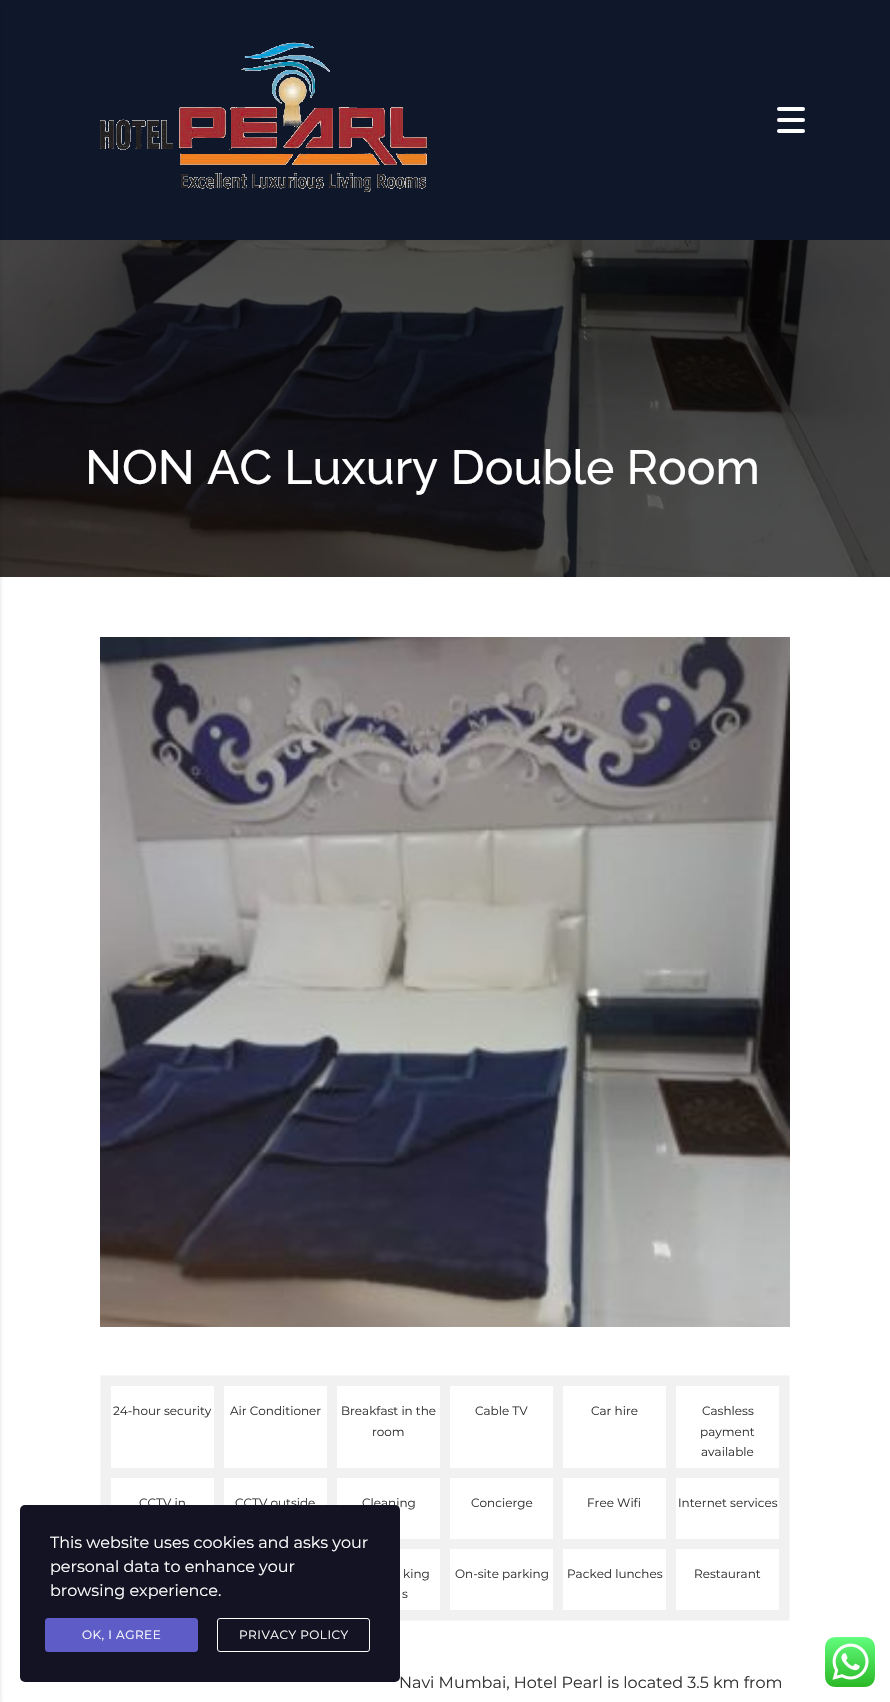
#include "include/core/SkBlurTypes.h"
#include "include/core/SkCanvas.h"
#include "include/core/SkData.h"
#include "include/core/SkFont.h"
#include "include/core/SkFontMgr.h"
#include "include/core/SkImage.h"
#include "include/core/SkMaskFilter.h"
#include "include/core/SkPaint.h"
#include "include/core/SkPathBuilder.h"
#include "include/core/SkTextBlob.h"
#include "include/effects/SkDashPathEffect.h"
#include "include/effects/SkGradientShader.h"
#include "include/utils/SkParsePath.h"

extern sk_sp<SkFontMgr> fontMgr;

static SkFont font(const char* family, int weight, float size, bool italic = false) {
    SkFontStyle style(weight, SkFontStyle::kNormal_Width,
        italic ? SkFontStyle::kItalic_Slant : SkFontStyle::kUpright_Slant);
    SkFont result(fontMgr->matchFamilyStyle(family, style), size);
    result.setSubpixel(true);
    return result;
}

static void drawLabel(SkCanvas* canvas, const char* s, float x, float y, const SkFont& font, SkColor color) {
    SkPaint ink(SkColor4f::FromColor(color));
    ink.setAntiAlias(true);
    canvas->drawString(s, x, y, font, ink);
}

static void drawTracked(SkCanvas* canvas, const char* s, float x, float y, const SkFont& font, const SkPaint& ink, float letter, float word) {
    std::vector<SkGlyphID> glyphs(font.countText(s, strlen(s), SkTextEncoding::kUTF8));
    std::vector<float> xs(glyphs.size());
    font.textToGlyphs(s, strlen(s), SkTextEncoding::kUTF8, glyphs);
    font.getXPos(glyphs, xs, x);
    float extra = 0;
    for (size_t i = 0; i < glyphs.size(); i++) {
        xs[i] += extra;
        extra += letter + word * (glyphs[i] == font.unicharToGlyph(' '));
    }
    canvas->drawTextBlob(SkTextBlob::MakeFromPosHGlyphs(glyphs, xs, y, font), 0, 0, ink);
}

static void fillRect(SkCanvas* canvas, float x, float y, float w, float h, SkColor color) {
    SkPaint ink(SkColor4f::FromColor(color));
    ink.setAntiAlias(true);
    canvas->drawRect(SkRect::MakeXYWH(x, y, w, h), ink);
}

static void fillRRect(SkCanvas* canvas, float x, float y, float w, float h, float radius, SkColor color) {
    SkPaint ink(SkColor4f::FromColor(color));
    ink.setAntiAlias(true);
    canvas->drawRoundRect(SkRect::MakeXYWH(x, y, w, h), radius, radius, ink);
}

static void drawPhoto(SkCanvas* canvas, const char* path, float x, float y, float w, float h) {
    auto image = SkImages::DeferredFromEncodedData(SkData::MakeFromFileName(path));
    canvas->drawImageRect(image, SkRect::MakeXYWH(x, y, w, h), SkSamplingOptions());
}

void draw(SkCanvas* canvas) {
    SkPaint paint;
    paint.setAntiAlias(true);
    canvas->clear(0xFFFFFFFF);
    fillRect(canvas, 0, 0, 890, 240, 0xFF0F172B);
    drawPhoto(canvas, "assets/img1.png", 100, 42, 329, 150);
    fillRRect(canvas, 777, 107, 28, 4, 2, 0xFFFFFFFF);
    fillRRect(canvas, 777, 118, 28, 4, 2, 0xFFFFFFFF);
    fillRRect(canvas, 777, 129, 28, 4, 2, 0xFFFFFFFF);
    drawPhoto(canvas, "assets/img2.png", 0, 240, 890, 337);
    paint.setColor(0x33000000);
    paint.setMaskFilter(SkMaskFilter::MakeBlur(kNormal_SkBlurStyle, 2.5f));
    canvas->drawRect(SkRect::MakeXYWH(-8, 3, 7, 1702), paint);
    paint.setMaskFilter(nullptr);
    SkFont font1 = font("Raleway", 500, 48);
    drawLabel(canvas, "NON AC Luxury Double Room", 85, 484, font1, 0xFFFFFFFF);
    drawPhoto(canvas, "assets/img3.png", 100, 637, 690, 690);
    paint.setColor(0xFFF1F1F1);
    canvas->drawRect(SkRect::MakeXYWH(100.5f, 1375.5f, 689, 245), paint);
    paint.setStroke(true);
    paint.setStrokeWidth(1);
    paint.setColor(0xFFF7F7F7);
    canvas->drawRect(SkRect::MakeXYWH(100.5f, 1375.5f, 689, 245), paint);
    fillRect(canvas, 111, 1386, 103, 82, 0xFFFFFFFF);
    SkFont font2 = font("Montserrat", 400, 12);
    drawLabel(canvas, "24-hour security", 113, 1415, font2, 0xFF333333);
    fillRect(canvas, 224, 1386, 103, 82, 0xFFFFFFFF);
    drawLabel(canvas, "Air Conditioner", 230, 1415, font2, 0xFF333333);
    fillRect(canvas, 337, 1386, 103, 82, 0xFFFFFFFF);
    drawLabel(canvas, "Breakfast in the", 341, 1415, font2, 0xFF333333);
    drawLabel(canvas, "room", 372, 1436, font2, 0xFF333333);
    fillRect(canvas, 450, 1386, 103, 82, 0xFFFFFFFF);
    drawLabel(canvas, "Cable TV", 475, 1415, font2, 0xFF333333);
    fillRect(canvas, 563, 1386, 103, 82, 0xFFFFFFFF);
    drawLabel(canvas, "Car hire", 591, 1415, font2, 0xFF333333);
    fillRect(canvas, 676, 1386, 103, 82, 0xFFFFFFFF);
    drawLabel(canvas, "Cashless", 702, 1415, font2, 0xFF333333);
    drawLabel(canvas, "payment", 700, 1436, font2, 0xFF333333);
    drawLabel(canvas, "available", 701, 1456, font2, 0xFF333333);
    fillRect(canvas, 111, 1478, 103, 27, 0xFFFFFFFF);
    drawLabel(canvas, "CCTV in", 139, 1507, font2, 0xFF333333);
    fillRect(canvas, 224, 1478, 103, 27, 0xFFFFFFFF);
    drawLabel(canvas, "CCTV outside", 235, 1507, font2, 0xFF333333);
    fillRect(canvas, 337, 1478, 103, 61, 0xFFFFFFFF);
    drawLabel(canvas, "Cleaning", 362, 1507, font2, 0xFF333333);
    fillRect(canvas, 450, 1478, 103, 61, 0xFFFFFFFF);
    drawLabel(canvas, "Concierge", 471, 1507, font2, 0xFF333333);
    fillRect(canvas, 563, 1478, 103, 61, 0xFFFFFFFF);
    drawLabel(canvas, "Free Wifi", 587, 1507, font2, 0xFF333333);
    fillRect(canvas, 676, 1478, 103, 61, 0xFFFFFFFF);
    drawLabel(canvas, "Internet services", 678, 1507, font2, 0xFF333333);
    fillRect(canvas, 400, 1549, 40, 61, 0xFFFFFFFF);
    drawLabel(canvas, "king", 403, 1578, font2, 0xFF333333);
    drawLabel(canvas, "s", 402, 1598, font2, 0xFF333333);
    fillRect(canvas, 450, 1549, 103, 61, 0xFFFFFFFF);
    drawLabel(canvas, "On-site parking", 455, 1578, font2, 0xFF333333);
    fillRect(canvas, 563, 1549, 103, 61, 0xFFFFFFFF);
    drawLabel(canvas, "Packed lunches", 567, 1578, font2, 0xFF333333);
    fillRect(canvas, 676, 1549, 103, 61, 0xFFFFFFFF);
    drawLabel(canvas, "Restaurant", 694, 1578, font2, 0xFF333333);
    SkFont font3 = font("Montserrat", 400, 16);
    drawLabel(canvas, "Navi Mumbai, Hotel Pearl is located 3.5 km from", 399, 1688, font3, 0xFF333333);
    fillRRect(canvas, 20, 1505, 380, 177, 5, 0xFF131323);
    drawLabel(canvas, "This website uses cookies and asks your", 50, 1548, font3, 0xFFFFFFFF);
    drawLabel(canvas, "personal data to enhance your", 50, 1572, font3, 0xFFFFFFFF);
    drawLabel(canvas, "browsing experience.", 50, 1596, font3, 0xFFFFFFFF);
    paint.setStroke(false);
    paint.setColor(0xFF5E5CC7);
    canvas->drawRoundRect(SkRect::MakeXYWH(45.5f, 1618.5f, 152, 33), 2.5f, 2.5f, paint);
    paint.setStroke(true);
    canvas->drawRoundRect(SkRect::MakeXYWH(45.5f, 1618.5f, 152, 33), 2.5f, 2.5f, paint);
    paint.setStroke(false);
    paint.setColor(0xFFFFFFFF);
    drawTracked(canvas, "OK, I AGREE", 82, 1639, font2, paint, 0.5f, 0);
    paint.setStroke(true);
    canvas->drawRoundRect(SkRect::MakeXYWH(217.5f, 1618.5f, 152, 33), 2.5f, 2.5f, paint);
    paint.setStroke(false);
    drawTracked(canvas, "PRIVACY POLICY", 239, 1639, font2, paint, 0.5f, 0);
    drawPhoto(canvas, "assets/img4.png", 825, 1637, 50, 50);
}
